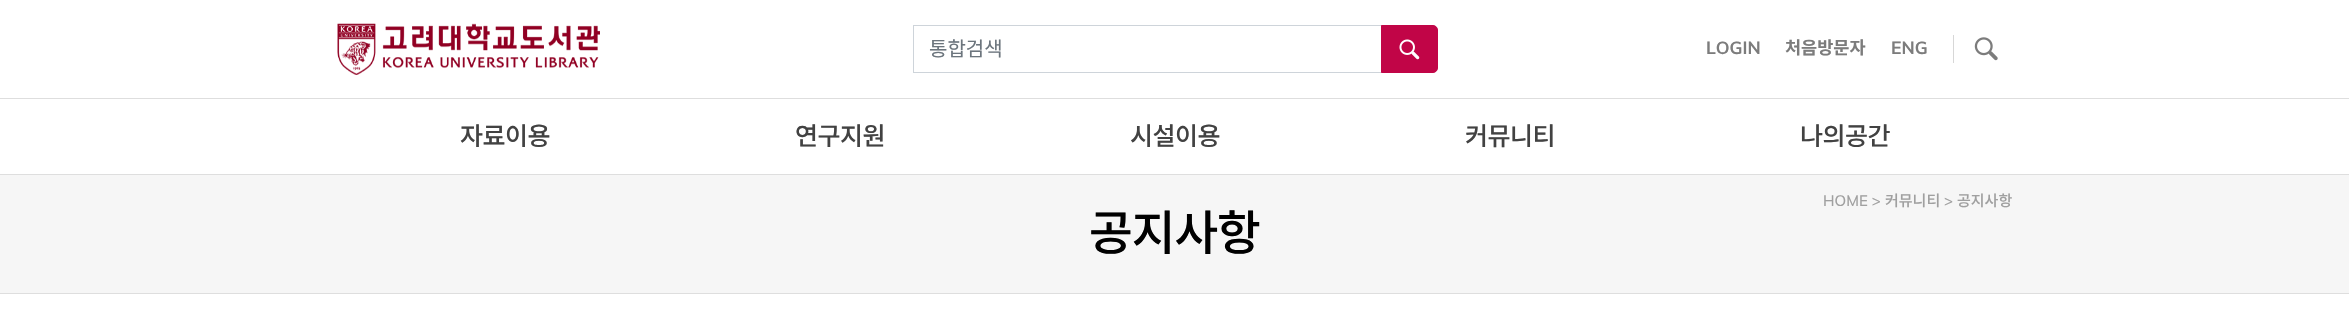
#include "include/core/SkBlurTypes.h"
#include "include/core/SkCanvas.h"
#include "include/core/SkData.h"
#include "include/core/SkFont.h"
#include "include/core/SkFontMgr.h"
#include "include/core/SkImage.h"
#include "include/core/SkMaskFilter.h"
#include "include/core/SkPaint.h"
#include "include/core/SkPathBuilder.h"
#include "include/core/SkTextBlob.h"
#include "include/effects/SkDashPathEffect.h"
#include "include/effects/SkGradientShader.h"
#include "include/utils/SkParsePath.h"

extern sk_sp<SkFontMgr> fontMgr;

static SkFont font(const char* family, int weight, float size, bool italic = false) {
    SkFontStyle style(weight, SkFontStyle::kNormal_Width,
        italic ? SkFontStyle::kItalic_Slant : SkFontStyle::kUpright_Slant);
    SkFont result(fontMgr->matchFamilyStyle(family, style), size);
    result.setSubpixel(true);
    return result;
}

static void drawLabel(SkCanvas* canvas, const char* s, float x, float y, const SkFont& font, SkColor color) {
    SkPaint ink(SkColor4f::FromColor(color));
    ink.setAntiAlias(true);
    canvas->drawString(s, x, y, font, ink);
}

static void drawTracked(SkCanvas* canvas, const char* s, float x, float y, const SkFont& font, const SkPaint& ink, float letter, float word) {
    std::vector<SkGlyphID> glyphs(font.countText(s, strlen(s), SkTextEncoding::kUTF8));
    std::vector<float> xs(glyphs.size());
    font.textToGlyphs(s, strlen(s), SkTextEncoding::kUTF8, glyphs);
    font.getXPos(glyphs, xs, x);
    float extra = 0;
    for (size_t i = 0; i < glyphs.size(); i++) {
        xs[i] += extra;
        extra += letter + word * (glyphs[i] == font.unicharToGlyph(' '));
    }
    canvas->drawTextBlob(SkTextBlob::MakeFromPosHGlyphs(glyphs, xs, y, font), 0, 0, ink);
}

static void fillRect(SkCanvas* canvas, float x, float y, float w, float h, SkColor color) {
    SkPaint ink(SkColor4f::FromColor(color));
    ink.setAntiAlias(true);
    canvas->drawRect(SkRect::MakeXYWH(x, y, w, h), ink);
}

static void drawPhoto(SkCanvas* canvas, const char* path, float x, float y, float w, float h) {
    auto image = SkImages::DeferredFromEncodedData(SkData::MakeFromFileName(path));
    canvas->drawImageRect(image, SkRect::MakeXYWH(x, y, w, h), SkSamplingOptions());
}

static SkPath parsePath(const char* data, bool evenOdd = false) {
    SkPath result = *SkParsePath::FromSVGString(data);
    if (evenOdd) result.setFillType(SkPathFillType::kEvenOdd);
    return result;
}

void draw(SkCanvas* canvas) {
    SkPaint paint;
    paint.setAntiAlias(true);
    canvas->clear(0xFFFFFFFF);
    fillRect(canvas, 0, 98, 2349, 1, 0xFFDEDEDE);
    drawPhoto(canvas, "assets/img1.png", 337, 23, 263, 52);
    paint.setStroke(true);
    paint.setStrokeWidth(1);
    paint.setColor(0xFFCED4DA);
    canvas->drawRect(SkRect::MakeXYWH(913.5f, 25.5f, 469, 47), paint);
    SkFont font1 = font("Noto Sans KR", 400, 20);
    drawLabel(canvas, "통합검색", 929, 56, font1, 0xFF6C757D);
    paint.setStroke(false);
    paint.setColor(0xFFC10547);
    canvas->drawPath(parsePath("M1381.5 25.5H1433C1435.5 25.5 1437.5 27.5 1437.5 30V68C1437.5 70.5 1435.5 72.5 1433 72.5H1381.5Z"), paint);
    paint.setStroke(true);
    canvas->drawPath(parsePath("M1381.5 25.5H1433C1435.5 25.5 1437.5 27.5 1437.5 30V68C1437.5 70.5 1435.5 72.5 1433 72.5H1381.5Z"), paint);
    drawPhoto(canvas, "assets/img2.png", 1399, 39, 21, 21);
    SkFont font2 = font("Muli", 700, 17.5f);
    drawLabel(canvas, "LOGIN", 1706, 54, font2, 0xFF7C7C7C);
    SkFont font3 = font("Noto Sans KR", 700, 17.5f);
    drawLabel(canvas, "처음방문자", 1785, 54, font3, 0xFF7C7C7C);
    drawLabel(canvas, "ENG", 1891, 54, font2, 0xFF7C7C7C);
    fillRect(canvas, 1953, 35, 1, 28, 0xFFD7D7D7);
    drawPhoto(canvas, "assets/img3.png", 1974, 37, 24, 24);
    fillRect(canvas, 0, 174, 2349, 1, 0xFFDEDEDE);
    SkFont font4 = font("Noto Sans KR", 500, 25);
    paint.setStroke(false);
    paint.setColor(0xFF424242);
    drawTracked(canvas, "자료이용", 460, 145, font4, paint, -0.5f, 0);
    drawTracked(canvas, "연구지원", 795, 145, font4, paint, -0.5f, 0);
    drawTracked(canvas, "시설이용", 1130, 145, font4, paint, -0.5f, 0);
    drawTracked(canvas, "커뮤니티", 1465, 145, font4, paint, -0.5f, 0);
    drawTracked(canvas, "나의공간", 1800, 145, font4, paint, -0.5f, 0);
    fillRect(canvas, 0, 175, 2349, 118, 0xFFF6F6F6);
    fillRect(canvas, 0, 293, 2349, 1, 0xFFDEDEDE);
    SkFont font5 = font("Muli", 500, 15);
    drawLabel(canvas, "HOME >", 1823, 206, font5, 0xFFA0A0A0);
    SkFont font6 = font("Noto Sans KR", 500, 15);
    drawLabel(canvas, "커뮤니티", 1885, 206, font6, 0xFFA0A0A0);
    drawLabel(canvas, ">", 1944, 206, font5, 0xFFA0A0A0);
    drawLabel(canvas, "공지사항", 1957, 206, font6, 0xFFA0A0A0);
    SkFont font7 = font("Noto Sans KR", 500, 47.5f);
    paint.setColor(0xFF000000);
    drawTracked(canvas, "공지사항", 1089, 250, font7, paint, -1, 0);
}
